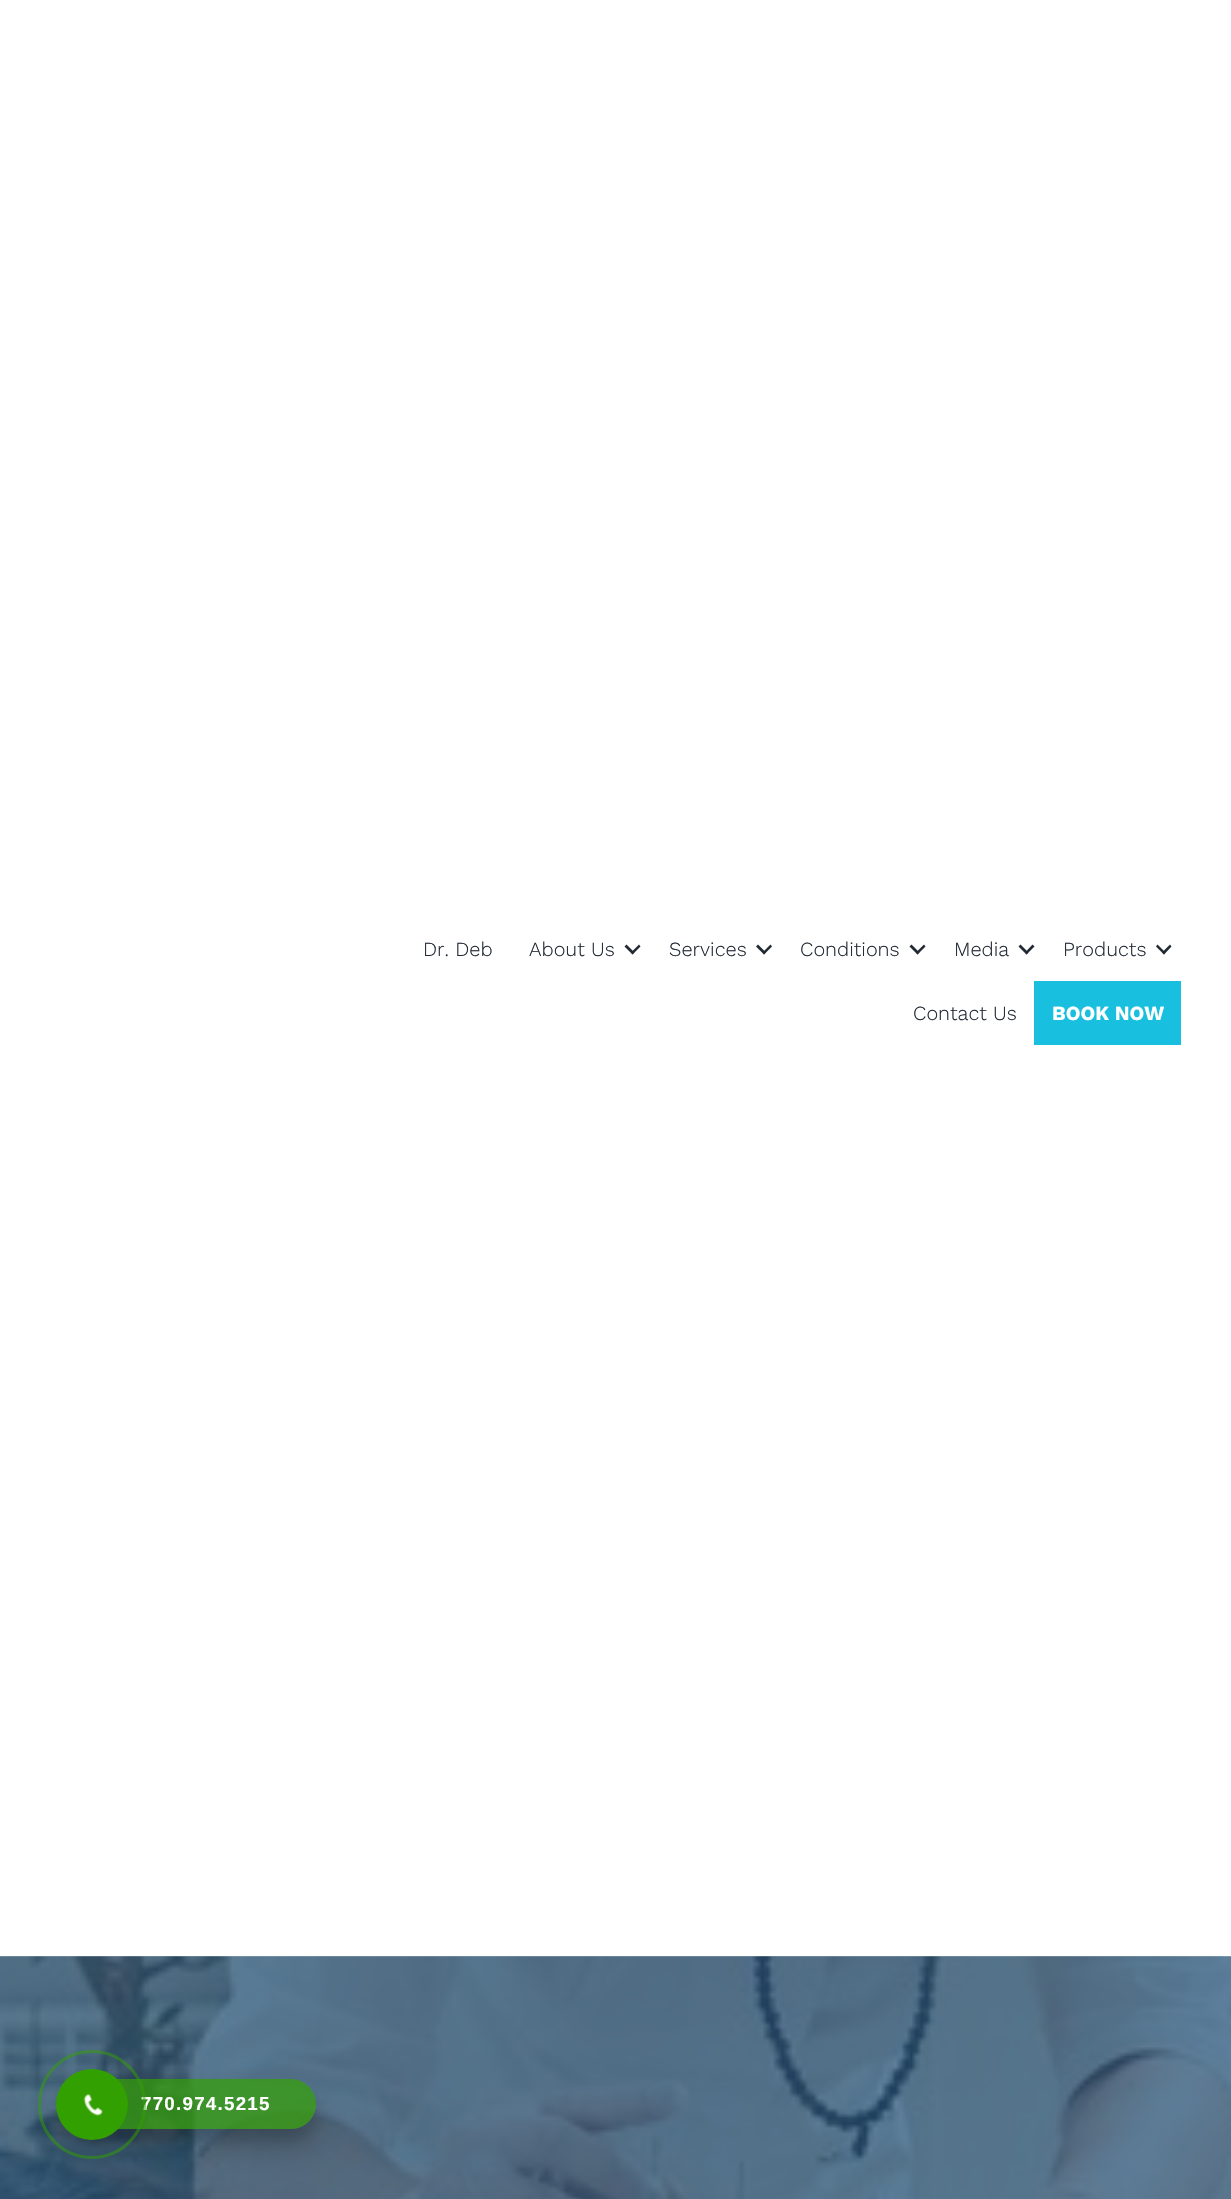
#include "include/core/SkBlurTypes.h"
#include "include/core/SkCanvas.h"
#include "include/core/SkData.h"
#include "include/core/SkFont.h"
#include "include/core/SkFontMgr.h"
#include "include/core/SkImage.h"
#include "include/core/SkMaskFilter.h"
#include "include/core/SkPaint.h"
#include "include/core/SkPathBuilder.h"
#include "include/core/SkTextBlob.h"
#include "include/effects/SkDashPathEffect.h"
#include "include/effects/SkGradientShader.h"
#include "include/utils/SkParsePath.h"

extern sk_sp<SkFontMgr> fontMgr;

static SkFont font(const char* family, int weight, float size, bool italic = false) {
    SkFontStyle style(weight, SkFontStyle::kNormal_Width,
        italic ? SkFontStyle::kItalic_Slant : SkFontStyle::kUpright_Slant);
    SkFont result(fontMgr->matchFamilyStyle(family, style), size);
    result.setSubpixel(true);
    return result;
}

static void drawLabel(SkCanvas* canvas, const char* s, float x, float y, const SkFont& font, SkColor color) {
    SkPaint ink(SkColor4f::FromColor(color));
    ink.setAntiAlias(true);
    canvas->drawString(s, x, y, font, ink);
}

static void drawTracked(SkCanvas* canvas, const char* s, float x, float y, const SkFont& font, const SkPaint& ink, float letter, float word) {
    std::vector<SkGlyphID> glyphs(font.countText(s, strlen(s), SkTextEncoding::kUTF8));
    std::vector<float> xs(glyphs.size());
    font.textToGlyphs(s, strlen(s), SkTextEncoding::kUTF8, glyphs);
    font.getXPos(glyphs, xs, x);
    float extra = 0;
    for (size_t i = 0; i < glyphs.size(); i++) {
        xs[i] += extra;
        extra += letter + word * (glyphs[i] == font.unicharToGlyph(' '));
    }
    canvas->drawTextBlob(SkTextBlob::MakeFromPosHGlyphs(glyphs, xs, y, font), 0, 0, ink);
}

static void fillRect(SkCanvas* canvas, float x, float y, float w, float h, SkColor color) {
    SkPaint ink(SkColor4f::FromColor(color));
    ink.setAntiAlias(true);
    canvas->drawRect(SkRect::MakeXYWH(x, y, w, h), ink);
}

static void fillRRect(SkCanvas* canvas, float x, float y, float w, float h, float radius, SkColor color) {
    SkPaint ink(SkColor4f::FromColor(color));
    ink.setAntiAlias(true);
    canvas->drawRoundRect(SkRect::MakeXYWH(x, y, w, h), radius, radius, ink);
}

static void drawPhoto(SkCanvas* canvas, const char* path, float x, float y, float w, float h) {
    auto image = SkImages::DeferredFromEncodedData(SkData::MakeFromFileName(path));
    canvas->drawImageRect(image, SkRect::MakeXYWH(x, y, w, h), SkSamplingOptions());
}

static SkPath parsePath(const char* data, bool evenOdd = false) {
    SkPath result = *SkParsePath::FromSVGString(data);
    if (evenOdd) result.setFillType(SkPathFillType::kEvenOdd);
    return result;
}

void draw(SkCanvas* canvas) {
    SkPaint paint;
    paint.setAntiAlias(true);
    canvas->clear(0xFFFFFFFF);
    canvas->save();
    canvas->clipRect(SkRect::MakeXYWH(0, 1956, 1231, 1));
    paint.setColor(0x3B1E405F);
    paint.setMaskFilter(SkMaskFilter::MakeBlur(kNormal_SkBlurStyle, 4));
    canvas->drawRect(SkRect::MakeXYWH(0, 4, 1231, 1956), paint);
    paint.setMaskFilter(nullptr);
    paint.setColor(0x1A1E405F);
    paint.setMaskFilter(SkMaskFilter::MakeBlur(kNormal_SkBlurStyle, 4));
    canvas->drawRect(SkRect::MakeXYWH(0, 4, 1231, 1956), paint);
    paint.setMaskFilter(nullptr);
    canvas->restore();
    SkFont font1 = font("Work Sans", 300, 20);
    drawLabel(canvas, "Dr. Deb", 423, 956, font1, 0xFF212933);
    drawLabel(canvas, "About Us", 529, 956, font1, 0xFF212933);
    paint.setColor(0xFF212933);
    canvas->drawPath(parsePath("M639 944.5L640.5 946.5L632.5 954.5L631 952.5Z"), paint);
    canvas->drawPath(parsePath("M626.5 944.5L634.5 952.5L632.5 954.5L624.5 946.5Z"), paint);
    drawLabel(canvas, "Services", 669, 956, font1, 0xFF212933);
    canvas->drawPath(parsePath("M770.5 944.5L772 946.5L764 954.5L762.5 952.5Z"), paint);
    canvas->drawPath(parsePath("M758 944.5L766 952.5L764 954.5L756 946.5Z"), paint);
    drawLabel(canvas, "Conditions", 800, 956, font1, 0xFF212933);
    canvas->drawPath(parsePath("M924 944.5L925.5 946.5L917.5 954.5L916 952.5Z"), paint);
    canvas->drawPath(parsePath("M911.5 944.5L919.5 952.5L917.5 954.5L909.5 946.5Z"), paint);
    drawLabel(canvas, "Media", 954, 956, font1, 0xFF212933);
    canvas->drawPath(parsePath("M1032.5 944.5L1034.5 946.5L1026.5 954.5L1025 952.5Z"), paint);
    canvas->drawPath(parsePath("M1020.5 944.5L1028.5 952.5L1026.5 954.5L1018.5 946.5Z"), paint);
    drawLabel(canvas, "Products", 1063, 956, font1, 0xFF212933);
    canvas->drawPath(parsePath("M1170 944.5L1171.5 946.5L1164 954.5L1162 952.5Z"), paint);
    canvas->drawPath(parsePath("M1157.5 944.5L1165.5 952.5L1164 954.5L1156 946.5Z"), paint);
    drawLabel(canvas, "Contact Us", 913, 1020, font1, 0xFF212933);
    fillRect(canvas, 1034, 981, 147, 64, 0xFF18BFDE);
    SkFont font2 = font("Work Sans", 700, 20);
    drawLabel(canvas, "BOOK NOW", 1052, 1020, font2, 0xFFFFFFFF);
    drawPhoto(canvas, "assets/img1.png", 0, 1956, 1231, 243);
    canvas->save();
    canvas->clipPath(parsePath("M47 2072H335V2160H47ZM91 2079H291C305 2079 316 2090 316 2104C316 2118 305 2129 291 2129H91C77 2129 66 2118 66 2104C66 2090 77 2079 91 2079Z", true), true);
    paint.setColor(0x1A000000);
    paint.setMaskFilter(SkMaskFilter::MakeBlur(kNormal_SkBlurStyle, 6));
    canvas->drawRoundRect(SkRect::MakeXYWH(66, 2091, 250, 50), 25, 25, paint);
    paint.setMaskFilter(nullptr);
    canvas->restore();
    canvas->save();
    canvas->clipPath(parsePath("M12 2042H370V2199H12ZM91 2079H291C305 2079 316 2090 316 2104C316 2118 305 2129 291 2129H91C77 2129 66 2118 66 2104C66 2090 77 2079 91 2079Z", true), true);
    paint.setColor(0x40000000);
    paint.setMaskFilter(SkMaskFilter::MakeBlur(kNormal_SkBlurStyle, 17.5f));
    canvas->drawRoundRect(SkRect::MakeXYWH(66, 2096, 250, 50), 25, 25, paint);
    paint.setMaskFilter(nullptr);
    canvas->restore();
    fillRRect(canvas, 66, 2079, 250, 50, 25, 0xB332A000);
    SkFont font3 = font("Liberation Sans", 700, 18.75f);
    paint.setColor(0xFFFFFFFF);
    drawTracked(canvas, "770.974.5215", 141, 2110, font3, paint, 1.25f, 0);
    paint.setStroke(true);
    paint.setStrokeWidth(3);
    paint.setColor(0x8032A000);
    canvas->drawRoundRect(SkRect::MakeXYWH(39.5f, 2051.5f, 105, 106), 52.5f, 52.5f, paint);
    fillRRect(canvas, 56, 2069, 72, 71, 35.5f, 0xFF32A000);
    drawPhoto(canvas, "assets/img2.png", 83, 2094, 20, 22);
}
